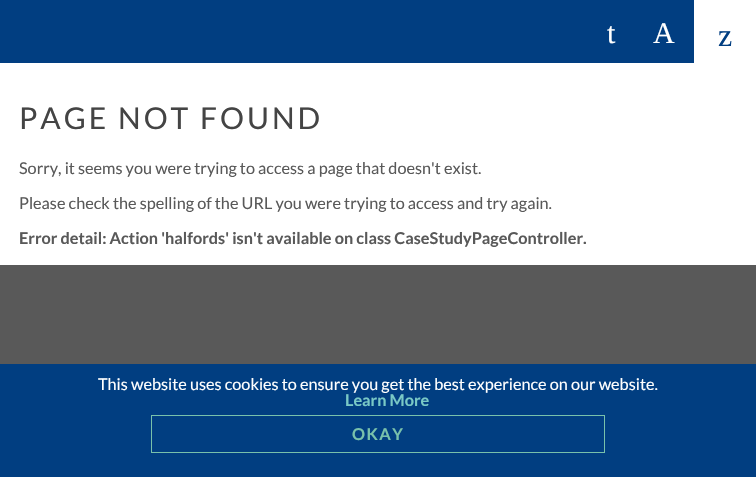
#include "include/core/SkBlurTypes.h"
#include "include/core/SkCanvas.h"
#include "include/core/SkData.h"
#include "include/core/SkFont.h"
#include "include/core/SkFontMgr.h"
#include "include/core/SkImage.h"
#include "include/core/SkMaskFilter.h"
#include "include/core/SkPaint.h"
#include "include/core/SkPathBuilder.h"
#include "include/core/SkTextBlob.h"
#include "include/effects/SkDashPathEffect.h"
#include "include/effects/SkGradientShader.h"
#include "include/utils/SkParsePath.h"

extern sk_sp<SkFontMgr> fontMgr;

static SkFont font(const char* family, int weight, float size, bool italic = false) {
    SkFontStyle style(weight, SkFontStyle::kNormal_Width,
        italic ? SkFontStyle::kItalic_Slant : SkFontStyle::kUpright_Slant);
    SkFont result(fontMgr->matchFamilyStyle(family, style), size);
    result.setSubpixel(true);
    return result;
}

static void drawLabel(SkCanvas* canvas, const char* s, float x, float y, const SkFont& font, SkColor color) {
    SkPaint ink(SkColor4f::FromColor(color));
    ink.setAntiAlias(true);
    canvas->drawString(s, x, y, font, ink);
}

static void drawTracked(SkCanvas* canvas, const char* s, float x, float y, const SkFont& font, const SkPaint& ink, float letter, float word) {
    std::vector<SkGlyphID> glyphs(font.countText(s, strlen(s), SkTextEncoding::kUTF8));
    std::vector<float> xs(glyphs.size());
    font.textToGlyphs(s, strlen(s), SkTextEncoding::kUTF8, glyphs);
    font.getXPos(glyphs, xs, x);
    float extra = 0;
    for (size_t i = 0; i < glyphs.size(); i++) {
        xs[i] += extra;
        extra += letter + word * (glyphs[i] == font.unicharToGlyph(' '));
    }
    canvas->drawTextBlob(SkTextBlob::MakeFromPosHGlyphs(glyphs, xs, y, font), 0, 0, ink);
}

static void fillRect(SkCanvas* canvas, float x, float y, float w, float h, SkColor color) {
    SkPaint ink(SkColor4f::FromColor(color));
    ink.setAntiAlias(true);
    canvas->drawRect(SkRect::MakeXYWH(x, y, w, h), ink);
}

void draw(SkCanvas* canvas) {
    SkPaint paint;
    paint.setAntiAlias(true);
    canvas->clear(0xFFFFFFFF);
    fillRect(canvas, 0, 0, 694, 63, 0xFF013E81);
    SkFont font1 = font("Liberation Serif", 400, 30);
    drawLabel(canvas, "t", 607, 43, font1, 0xFFFFFFFF);
    drawLabel(canvas, "A", 653, 43, font1, 0xFFFFFFFF);
    SkFont font2 = font("Liberation Serif", 400, 32);
    drawLabel(canvas, "z", 718, 46, font2, 0xFF013E81);
    SkFont font3 = font("Lato", 400, 30);
    paint.setColor(0xFF444444);
    drawTracked(canvas, "PAGE NOT FOUND", 19, 129, font3, paint, 3, 0);
    SkFont font4 = font("Lato", 400, 16.25f);
    drawLabel(canvas, "Sorry, it seems you were trying to access a page that doesn't exist.", 19, 174, font4, 0xFF595959);
    drawLabel(canvas, "Please check the spelling of the URL you were trying to access and try again.", 19, 209, font4, 0xFF595959);
    SkFont font5 = font("Lato", 700, 16.25f);
    drawLabel(canvas, "Error detail: Action 'halfords' isn't available on class CaseStudyPageController.", 19, 244, font5, 0xFF595959);
    fillRect(canvas, 0, 265, 756, 99, 0xFF595959);
    fillRect(canvas, 0, 364, 756, 113, 0xFF013E81);
    drawLabel(canvas, "This website uses cookies to ensure you get the best experience on our website.", 98, 390, font4, 0xFFFFFFFF);
    drawLabel(canvas, "Learn More", 345, 406, font5, 0xFF7AC9C6);
    paint.setStroke(true);
    paint.setStrokeWidth(1);
    paint.setColor(0xFF79C1AB);
    canvas->drawRect(SkRect::MakeXYWH(151.5f, 415.5f, 453, 37), paint);
    paint.setStroke(false);
    drawTracked(canvas, "OKAY", 352, 440, font5, paint, 1.5f, 0);
}
